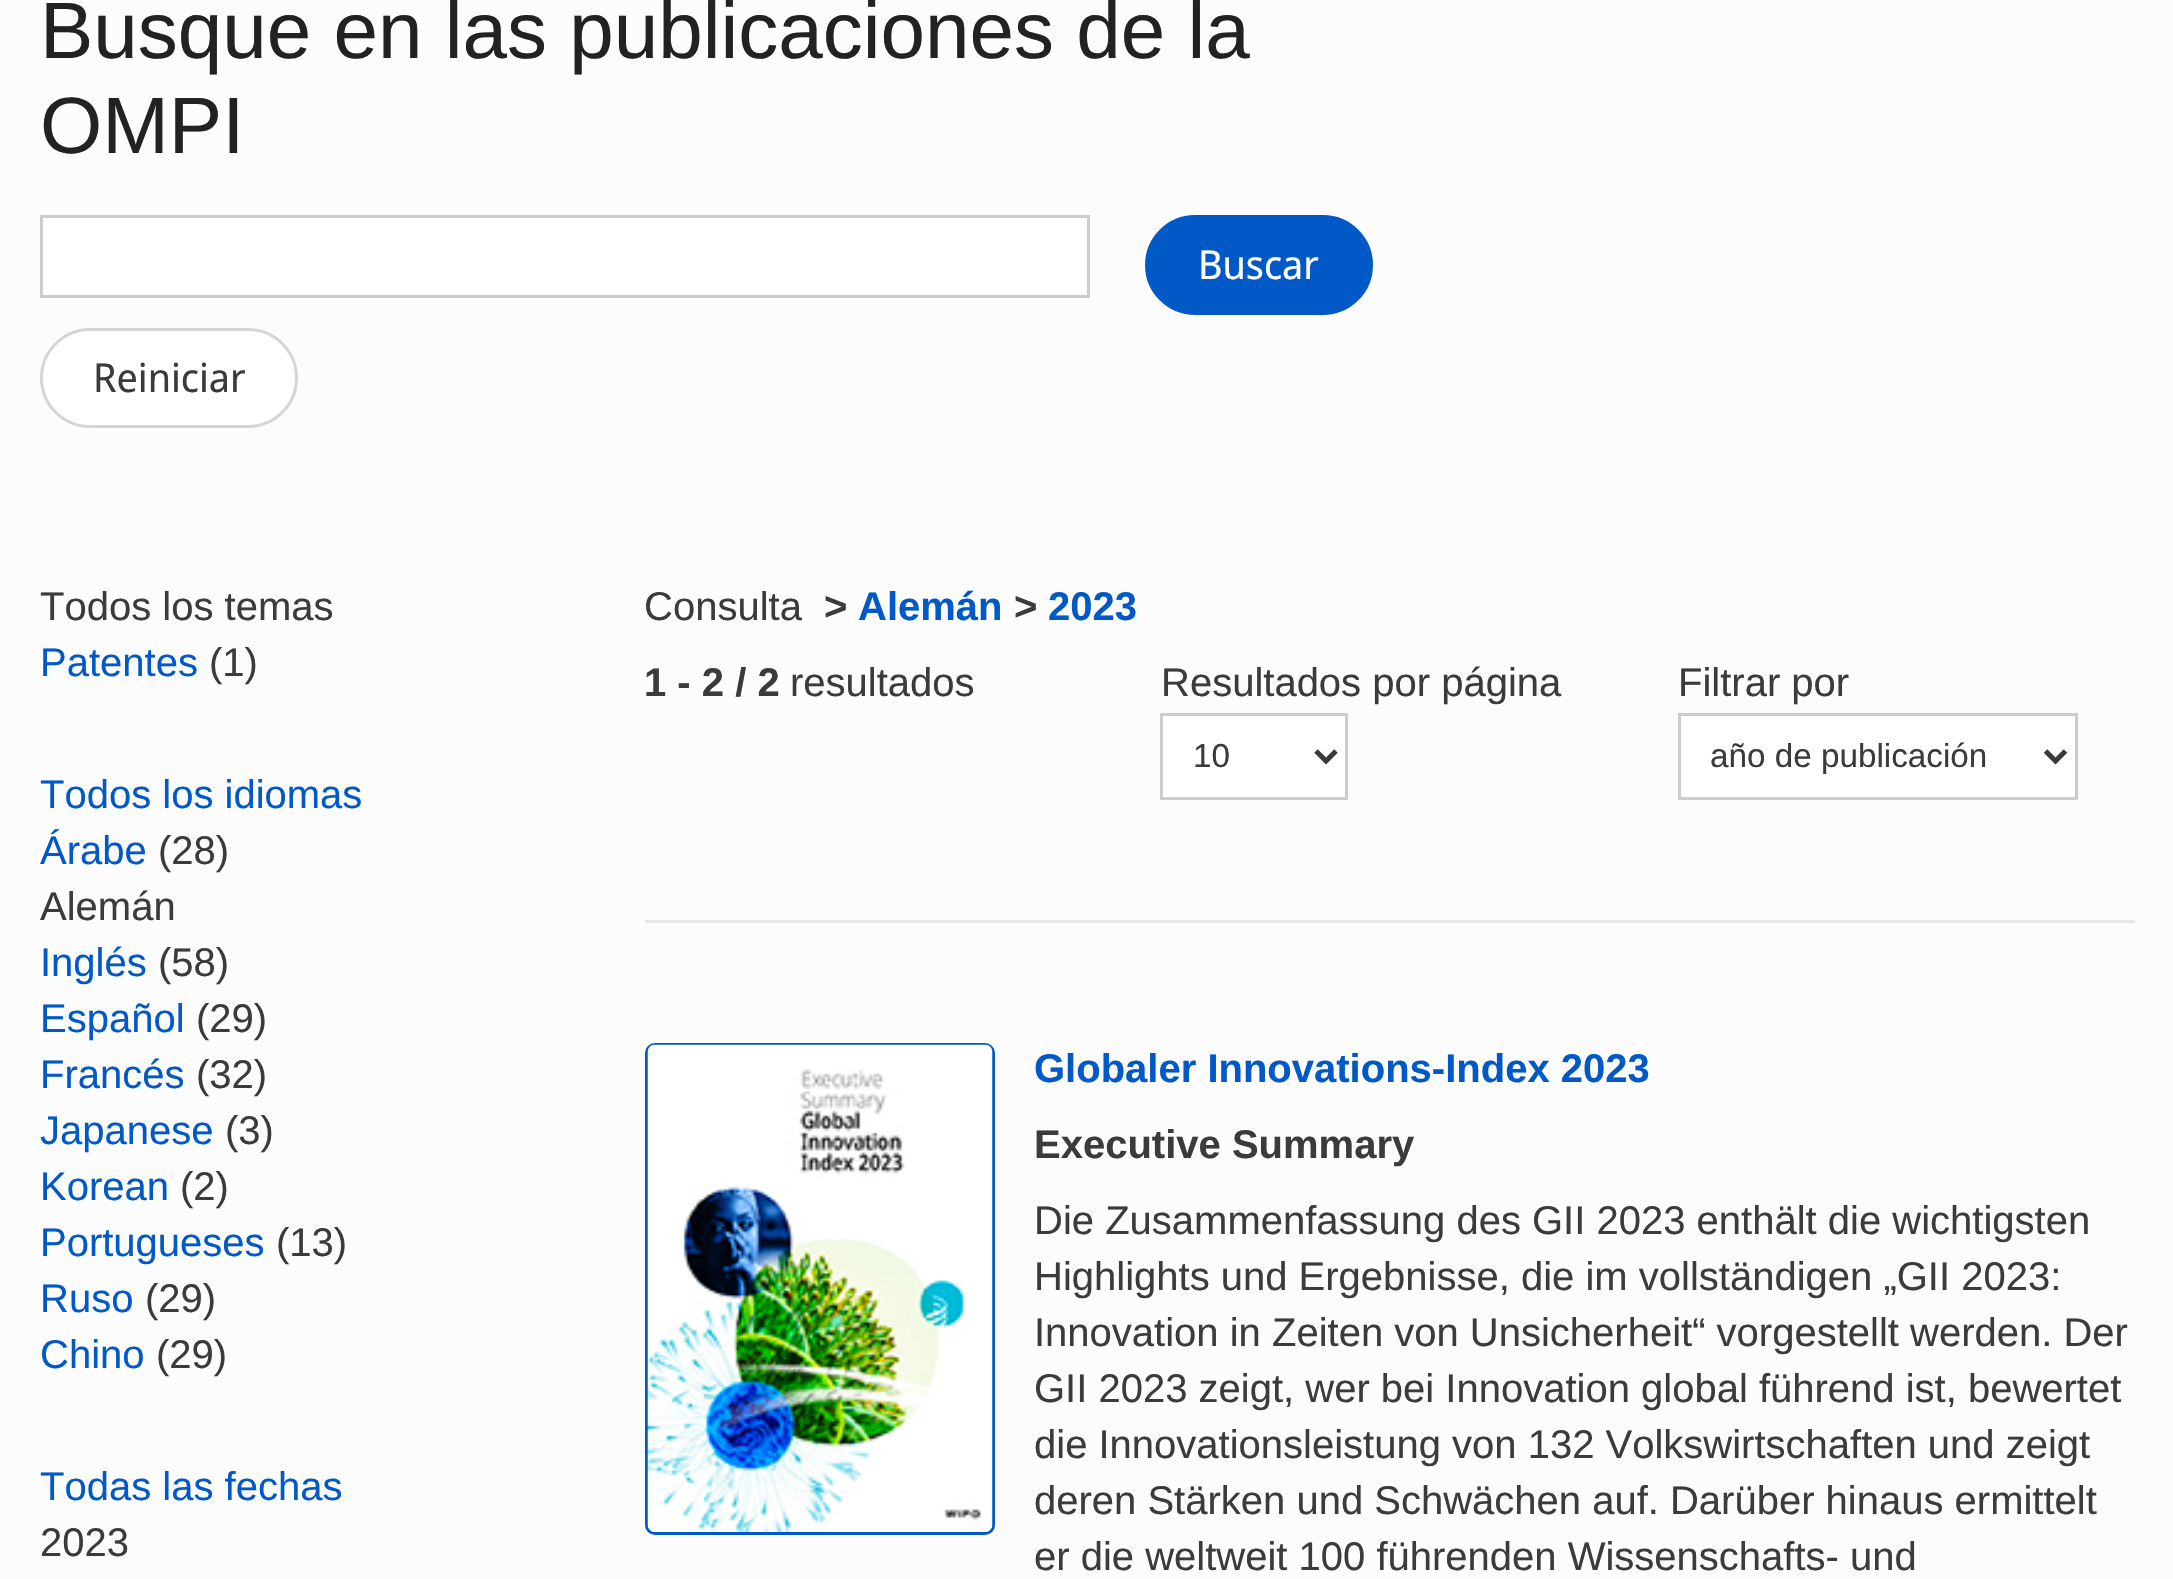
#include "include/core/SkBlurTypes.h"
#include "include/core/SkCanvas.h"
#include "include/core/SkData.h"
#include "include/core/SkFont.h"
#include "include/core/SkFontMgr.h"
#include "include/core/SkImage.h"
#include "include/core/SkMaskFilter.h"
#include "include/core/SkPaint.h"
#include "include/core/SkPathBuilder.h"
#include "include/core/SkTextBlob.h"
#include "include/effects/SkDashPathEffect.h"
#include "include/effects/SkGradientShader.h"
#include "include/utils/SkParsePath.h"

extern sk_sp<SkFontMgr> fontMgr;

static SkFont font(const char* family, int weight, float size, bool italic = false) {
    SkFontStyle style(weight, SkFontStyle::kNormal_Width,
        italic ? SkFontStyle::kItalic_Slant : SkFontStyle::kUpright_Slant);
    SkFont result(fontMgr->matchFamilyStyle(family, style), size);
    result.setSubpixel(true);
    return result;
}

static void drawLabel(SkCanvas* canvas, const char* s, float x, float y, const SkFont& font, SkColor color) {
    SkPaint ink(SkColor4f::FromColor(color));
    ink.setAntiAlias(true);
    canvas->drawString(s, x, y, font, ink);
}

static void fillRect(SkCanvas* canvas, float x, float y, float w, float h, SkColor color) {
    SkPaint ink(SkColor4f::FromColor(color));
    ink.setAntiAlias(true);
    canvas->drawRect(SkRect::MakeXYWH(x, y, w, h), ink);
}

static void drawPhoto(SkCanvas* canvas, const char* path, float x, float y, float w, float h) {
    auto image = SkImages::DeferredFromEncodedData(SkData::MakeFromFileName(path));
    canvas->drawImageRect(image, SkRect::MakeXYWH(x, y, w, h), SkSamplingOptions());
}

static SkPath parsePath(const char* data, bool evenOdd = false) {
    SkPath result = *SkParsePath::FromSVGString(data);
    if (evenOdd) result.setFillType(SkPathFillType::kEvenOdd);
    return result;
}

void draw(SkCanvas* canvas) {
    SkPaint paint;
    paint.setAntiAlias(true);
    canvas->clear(0xFFFCFCFC);
    SkFont font1 = font("Liberation Sans", 400, 80);
    drawLabel(canvas, "Busque en las publicaciones de la", 40, 58, font1, 0xFF222222);
    drawLabel(canvas, "OMPI", 40, 153, font1, 0xFF222222);
    paint.setColor(0xFFFFFFFF);
    canvas->drawRect(SkRect::MakeXYWH(41.5f, 216.5f, 1047, 80), paint);
    paint.setStroke(true);
    paint.setStrokeWidth(3);
    paint.setColor(0xFFCCCCCC);
    canvas->drawRect(SkRect::MakeXYWH(41.5f, 216.5f, 1047, 80), paint);
    paint.setStroke(false);
    paint.setColor(0xFF0059C6);
    canvas->drawRoundRect(SkRect::MakeXYWH(1146.5f, 216.5f, 225, 97), 48.5f, 48.5f, paint);
    paint.setStroke(true);
    canvas->drawRoundRect(SkRect::MakeXYWH(1146.5f, 216.5f, 225, 97), 48.5f, 48.5f, paint);
    SkFont font2 = font("Noto Sans Display", 400, 40);
    drawLabel(canvas, "Buscar", 1198, 279, font2, 0xFFFFFFFF);
    paint.setStroke(false);
    paint.setColor(0xFFFFFFFF);
    canvas->drawRoundRect(SkRect::MakeXYWH(41.5f, 329.5f, 255, 97), 48.5f, 48.5f, paint);
    paint.setStroke(true);
    paint.setColor(0xFFD5D5D5);
    canvas->drawRoundRect(SkRect::MakeXYWH(41.5f, 329.5f, 255, 97), 48.5f, 48.5f, paint);
    drawLabel(canvas, "Reiniciar", 93, 392, font2, 0xFF3B3B3B);
    SkFont font3 = font("Liberation Sans", 400, 40);
    drawLabel(canvas, "Todos los temas", 40, 620, font3, 0xFF3B3B3B);
    drawLabel(canvas, "Patentes", 40, 676, font3, 0xFF0059C6);
    drawLabel(canvas, "(1)", 209, 676, font3, 0xFF3B3B3B);
    drawLabel(canvas, "Todos los idiomas", 40, 808, font3, 0xFF0059C6);
    drawLabel(canvas, "Árabe", 40, 864, font3, 0xFF0059C6);
    drawLabel(canvas, "(28)", 158, 864, font3, 0xFF3B3B3B);
    drawLabel(canvas, "Alemán", 40, 920, font3, 0xFF3B3B3B);
    drawLabel(canvas, "Inglés", 40, 976, font3, 0xFF0059C6);
    drawLabel(canvas, "(58)", 158, 976, font3, 0xFF3B3B3B);
    drawLabel(canvas, "Español", 40, 1032, font3, 0xFF0059C6);
    drawLabel(canvas, "(29)", 196, 1032, font3, 0xFF3B3B3B);
    drawLabel(canvas, "Francés", 40, 1088, font3, 0xFF0059C6);
    drawLabel(canvas, "(32)", 196, 1088, font3, 0xFF3B3B3B);
    drawLabel(canvas, "Japanese", 40, 1144, font3, 0xFF0059C6);
    drawLabel(canvas, "(3)", 225, 1144, font3, 0xFF3B3B3B);
    drawLabel(canvas, "Korean", 40, 1200, font3, 0xFF0059C6);
    drawLabel(canvas, "(2)", 180, 1200, font3, 0xFF3B3B3B);
    drawLabel(canvas, "Portugueses", 40, 1256, font3, 0xFF0059C6);
    drawLabel(canvas, "(13)", 276, 1256, font3, 0xFF3B3B3B);
    drawLabel(canvas, "Ruso", 40, 1312, font3, 0xFF0059C6);
    drawLabel(canvas, "(29)", 145, 1312, font3, 0xFF3B3B3B);
    drawLabel(canvas, "Chino", 40, 1368, font3, 0xFF0059C6);
    drawLabel(canvas, "(29)", 156, 1368, font3, 0xFF3B3B3B);
    drawLabel(canvas, "Todas las fechas", 40, 1500, font3, 0xFF0059C6);
    drawLabel(canvas, "2023", 40, 1556, font3, 0xFF3B3B3B);
    drawLabel(canvas, "Consulta", 644, 620, font3, 0xFF3B3B3B);
    SkFont font4 = font("Liberation Sans", 700, 40);
    drawLabel(canvas, ">", 824, 620, font4, 0xFF3B3B3B);
    drawLabel(canvas, "Alemán", 858, 620, font4, 0xFF0059C6);
    drawLabel(canvas, ">", 1014, 620, font4, 0xFF3B3B3B);
    drawLabel(canvas, "2023", 1048, 620, font4, 0xFF0059C6);
    drawLabel(canvas, "1 - 2 / 2", 644, 696, font4, 0xFF3B3B3B);
    drawLabel(canvas, "resultados", 790, 696, font3, 0xFF3B3B3B);
    drawLabel(canvas, "Resultados por página", 1161, 696, font3, 0xFF3B3B3B);
    paint.setStroke(false);
    paint.setColor(0xFFFFFFFF);
    canvas->drawRect(SkRect::MakeXYWH(1161.5f, 714.5f, 185, 84), paint);
    paint.setStroke(true);
    paint.setColor(0xFFCCCCCC);
    canvas->drawRect(SkRect::MakeXYWH(1161.5f, 714.5f, 185, 84), paint);
    paint.setStrokeWidth(5);
    paint.setColor(0xFF393939);
    canvas->drawPath(parsePath("M1316 751L1326 761L1336 751"), paint);
    SkFont font5 = font("Liberation Sans", 400, 33.25f);
    drawLabel(canvas, "10", 1193, 767, font5, 0xFF3B3B3B);
    drawLabel(canvas, "Filtrar por", 1678, 696, font3, 0xFF3B3B3B);
    paint.setStroke(false);
    paint.setColor(0xFFFFFFFF);
    canvas->drawRect(SkRect::MakeXYWH(1679.5f, 714.5f, 397, 84), paint);
    paint.setStroke(true);
    paint.setStrokeWidth(3);
    paint.setColor(0xFFCCCCCC);
    canvas->drawRect(SkRect::MakeXYWH(1679.5f, 714.5f, 397, 84), paint);
    paint.setStrokeWidth(5);
    paint.setColor(0xFF393939);
    canvas->drawPath(parsePath("M2045.5 751L2055.5 761L2065.5 751"), paint);
    drawLabel(canvas, "año de publicación", 1710, 767, font5, 0xFF3B3B3B);
    fillRect(canvas, 645, 920, 1490, 3, 0xFFE6E6E6);
    paint.setStrokeWidth(3);
    paint.setColor(0xFF0059C6);
    canvas->drawRoundRect(SkRect::MakeXYWH(646.5f, 1044.5f, 347, 489), 8.5f, 8.5f, paint);
    drawPhoto(canvas, "assets/img1.png", 647, 1044, 346, 488);
    drawLabel(canvas, "Globaler Innovations-Index 2023", 1034, 1082, font4, 0xFF0059C6);
    drawLabel(canvas, "Executive Summary", 1034, 1158, font4, 0xFF3B3B3B);
    drawLabel(canvas, "Die Zusammenfassung des GII 2023 enthält die wichtigsten", 1034, 1234, font3, 0xFF3B3B3B);
    drawLabel(canvas, "Highlights und Ergebnisse, die im vollständigen „GII 2023:", 1034, 1290, font3, 0xFF3B3B3B);
    drawLabel(canvas, "Innovation in Zeiten von Unsicherheit“ vorgestellt werden. Der", 1034, 1346, font3, 0xFF3B3B3B);
    drawLabel(canvas, "GII 2023 zeigt, wer bei Innovation global führend ist, bewertet", 1034, 1402, font3, 0xFF3B3B3B);
    drawLabel(canvas, "die Innovationsleistung von 132 Volkswirtschaften und zeigt", 1034, 1458, font3, 0xFF3B3B3B);
    drawLabel(canvas, "deren Stärken und Schwächen auf. Darüber hinaus ermittelt", 1034, 1514, font3, 0xFF3B3B3B);
    drawLabel(canvas, "er die weltweit 100 führenden Wissenschafts- und", 1034, 1570, font3, 0xFF3B3B3B);
}
